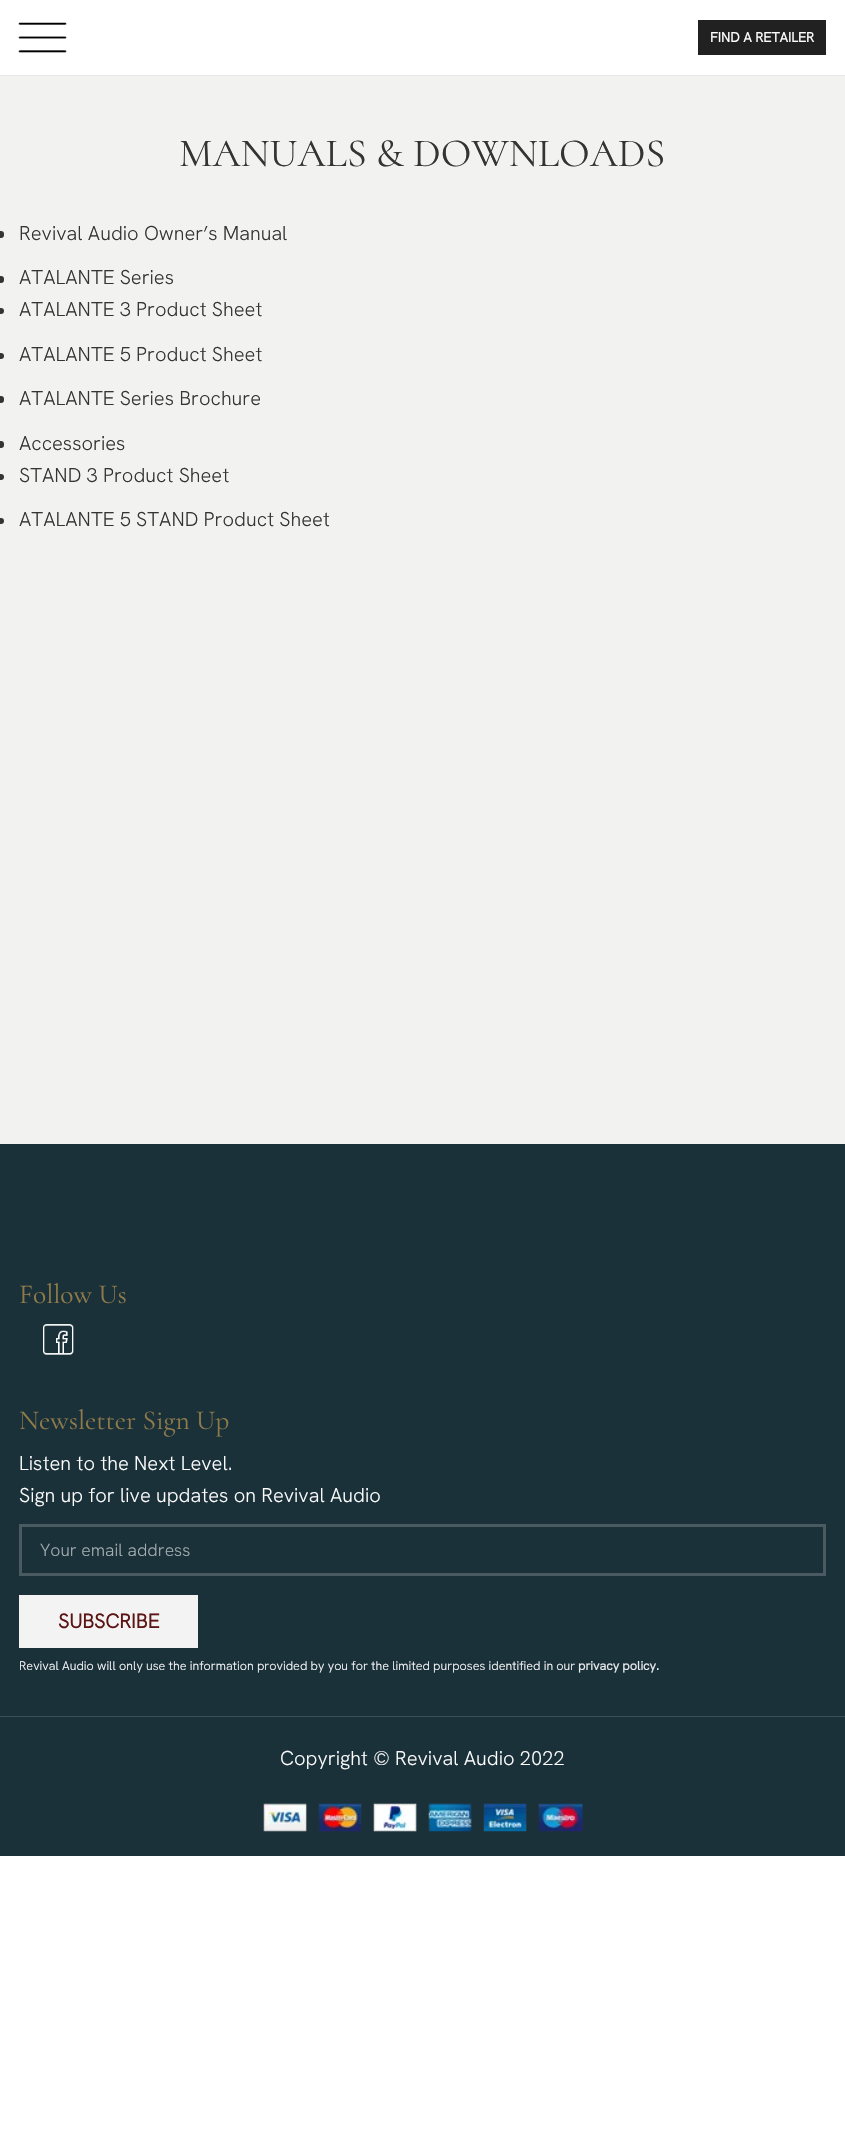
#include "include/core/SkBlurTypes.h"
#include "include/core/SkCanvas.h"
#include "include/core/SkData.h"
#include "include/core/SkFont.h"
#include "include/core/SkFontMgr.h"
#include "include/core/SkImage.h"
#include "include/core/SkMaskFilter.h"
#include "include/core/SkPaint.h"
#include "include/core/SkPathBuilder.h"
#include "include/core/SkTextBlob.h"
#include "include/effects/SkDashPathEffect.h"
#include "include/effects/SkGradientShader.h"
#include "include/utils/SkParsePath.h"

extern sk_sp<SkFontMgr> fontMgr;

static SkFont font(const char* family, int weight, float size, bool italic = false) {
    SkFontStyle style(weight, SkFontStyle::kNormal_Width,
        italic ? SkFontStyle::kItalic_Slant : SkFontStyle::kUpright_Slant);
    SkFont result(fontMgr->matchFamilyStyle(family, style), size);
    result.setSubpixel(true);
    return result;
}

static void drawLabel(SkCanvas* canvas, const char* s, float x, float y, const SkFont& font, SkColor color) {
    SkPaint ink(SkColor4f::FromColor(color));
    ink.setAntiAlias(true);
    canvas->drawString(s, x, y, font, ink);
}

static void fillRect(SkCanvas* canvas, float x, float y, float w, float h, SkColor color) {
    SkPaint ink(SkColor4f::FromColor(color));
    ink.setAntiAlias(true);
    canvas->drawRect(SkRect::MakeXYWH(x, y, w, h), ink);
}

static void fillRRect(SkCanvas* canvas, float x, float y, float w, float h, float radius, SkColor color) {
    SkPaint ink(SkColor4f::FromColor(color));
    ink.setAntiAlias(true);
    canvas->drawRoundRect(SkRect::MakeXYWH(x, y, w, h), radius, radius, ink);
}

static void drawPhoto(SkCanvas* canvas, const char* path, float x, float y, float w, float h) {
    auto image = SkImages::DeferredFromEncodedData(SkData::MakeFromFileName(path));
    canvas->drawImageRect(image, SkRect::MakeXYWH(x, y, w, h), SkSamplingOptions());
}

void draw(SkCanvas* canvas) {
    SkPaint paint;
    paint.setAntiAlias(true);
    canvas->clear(0xFFFFFFFF);
    fillRect(canvas, 0, 75, 845, 1, 0xFFE6E6E6);
    drawPhoto(canvas, "assets/img1.png", 18, 22, 49, 31);
    fillRect(canvas, 698, 20, 128, 35, 0xFF212121);
    SkFont font1 = font("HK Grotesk", 700, 13.75f);
    drawLabel(canvas, "FIND A RETAILER", 710, 42, font1, 0xFFFFFFFF);
    fillRect(canvas, 0, 76, 845, 1068, 0xFFF2F2F0);
    SkFont font2 = font("Cormorant", 400, 40);
    drawLabel(canvas, "MANUALS & DOWNLOADS", 179, 166, font2, 0xFF343434);
    fillRRect(canvas, -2, 231, 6, 7, 3, 0xFF343434);
    SkFont font3 = font("HK Grotesk", 300, 20);
    drawLabel(canvas, "Revival Audio Owner’s Manual", 19, 240, font3, 0xFF343434);
    fillRRect(canvas, -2, 276, 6, 7, 3, 0xFF343434);
    drawLabel(canvas, "ATALANTE Series", 19, 284, font3, 0xFF343434);
    paint.setColor(0xFF343434);
    canvas->drawCircle(1, 311, 3, paint);
    drawLabel(canvas, "ATALANTE 3 Product Sheet", 19, 316, font3, 0xFF343434);
    canvas->drawCircle(1, 356, 3, paint);
    drawLabel(canvas, "ATALANTE 5 Product Sheet", 19, 361, font3, 0xFF343434);
    fillRRect(canvas, -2, 396, 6, 7, 3, 0xFF343434);
    drawLabel(canvas, "ATALANTE Series Brochure", 19, 405, font3, 0xFF343434);
    fillRRect(canvas, -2, 441, 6, 7, 3, 0xFF343434);
    drawLabel(canvas, "Accessories", 19, 450, font3, 0xFF343434);
    canvas->drawCircle(1, 477, 3, paint);
    drawLabel(canvas, "STAND 3 Product Sheet", 19, 482, font3, 0xFF343434);
    canvas->drawCircle(1, 521, 3, paint);
    drawLabel(canvas, "ATALANTE 5 STAND Product Sheet", 19, 526, font3, 0xFF343434);
    fillRect(canvas, 0, 1144, 845, 712, 0xFF1B313A);
    SkFont font4 = font("Cormorant", 400, 27.5f);
    drawLabel(canvas, "Follow Us", 19, 1303, font4, 0xFF8F7A49);
    drawPhoto(canvas, "assets/img2.png", 43, 1324, 31, 31);
    drawLabel(canvas, "Newsletter Sign Up", 19, 1429, font4, 0xFF8F7A49);
    drawLabel(canvas, "Listen to the Next Level.", 19, 1470, font3, 0xFFFFFFFF);
    drawLabel(canvas, "Sign up for live updates on Revival Audio", 19, 1502, font3, 0xFFFFFFFF);
    paint.setStroke(true);
    paint.setStrokeWidth(3);
    paint.setColor(0xFF495A61);
    canvas->drawRect(SkRect::MakeXYWH(20.5f, 1525.5f, 804, 49), paint);
    SkFont font5 = font("HK Grotesk", 300, 17.5f);
    drawLabel(canvas, "Your email address", 40, 1556, font5, 0xFFA4ADB0);
    fillRect(canvas, 19, 1595, 179, 53, 0xFFF3F3F3);
    SkFont font6 = font("HK Grotesk", 700, 20);
    drawLabel(canvas, "SUBSCRIBE", 58, 1628, font6, 0xFF5C1515);
    SkFont font7 = font("HK Grotesk", 300, 12.5f);
    drawLabel(canvas, "Revival Audio will only use the information provided by you for the limited purposes identified in our", 19, 1670, font7, 0xFFFFFFFF);
    SkFont font8 = font("HK Grotesk", 700, 12.5f);
    drawLabel(canvas, "privacy policy", 578, 1670, font8, 0xFFE8EAEB);
    drawLabel(canvas, ".", 656, 1670, font8, 0xFFFFFFFF);
    fillRect(canvas, 0, 1716, 845, 1, 0xFF3D5058);
    drawLabel(canvas, "Copyright © Revival Audio 2022", 280, 1765, font3, 0xFFFFFFFF);
    drawPhoto(canvas, "assets/img3.png", 263, 1803, 320, 29);
}
